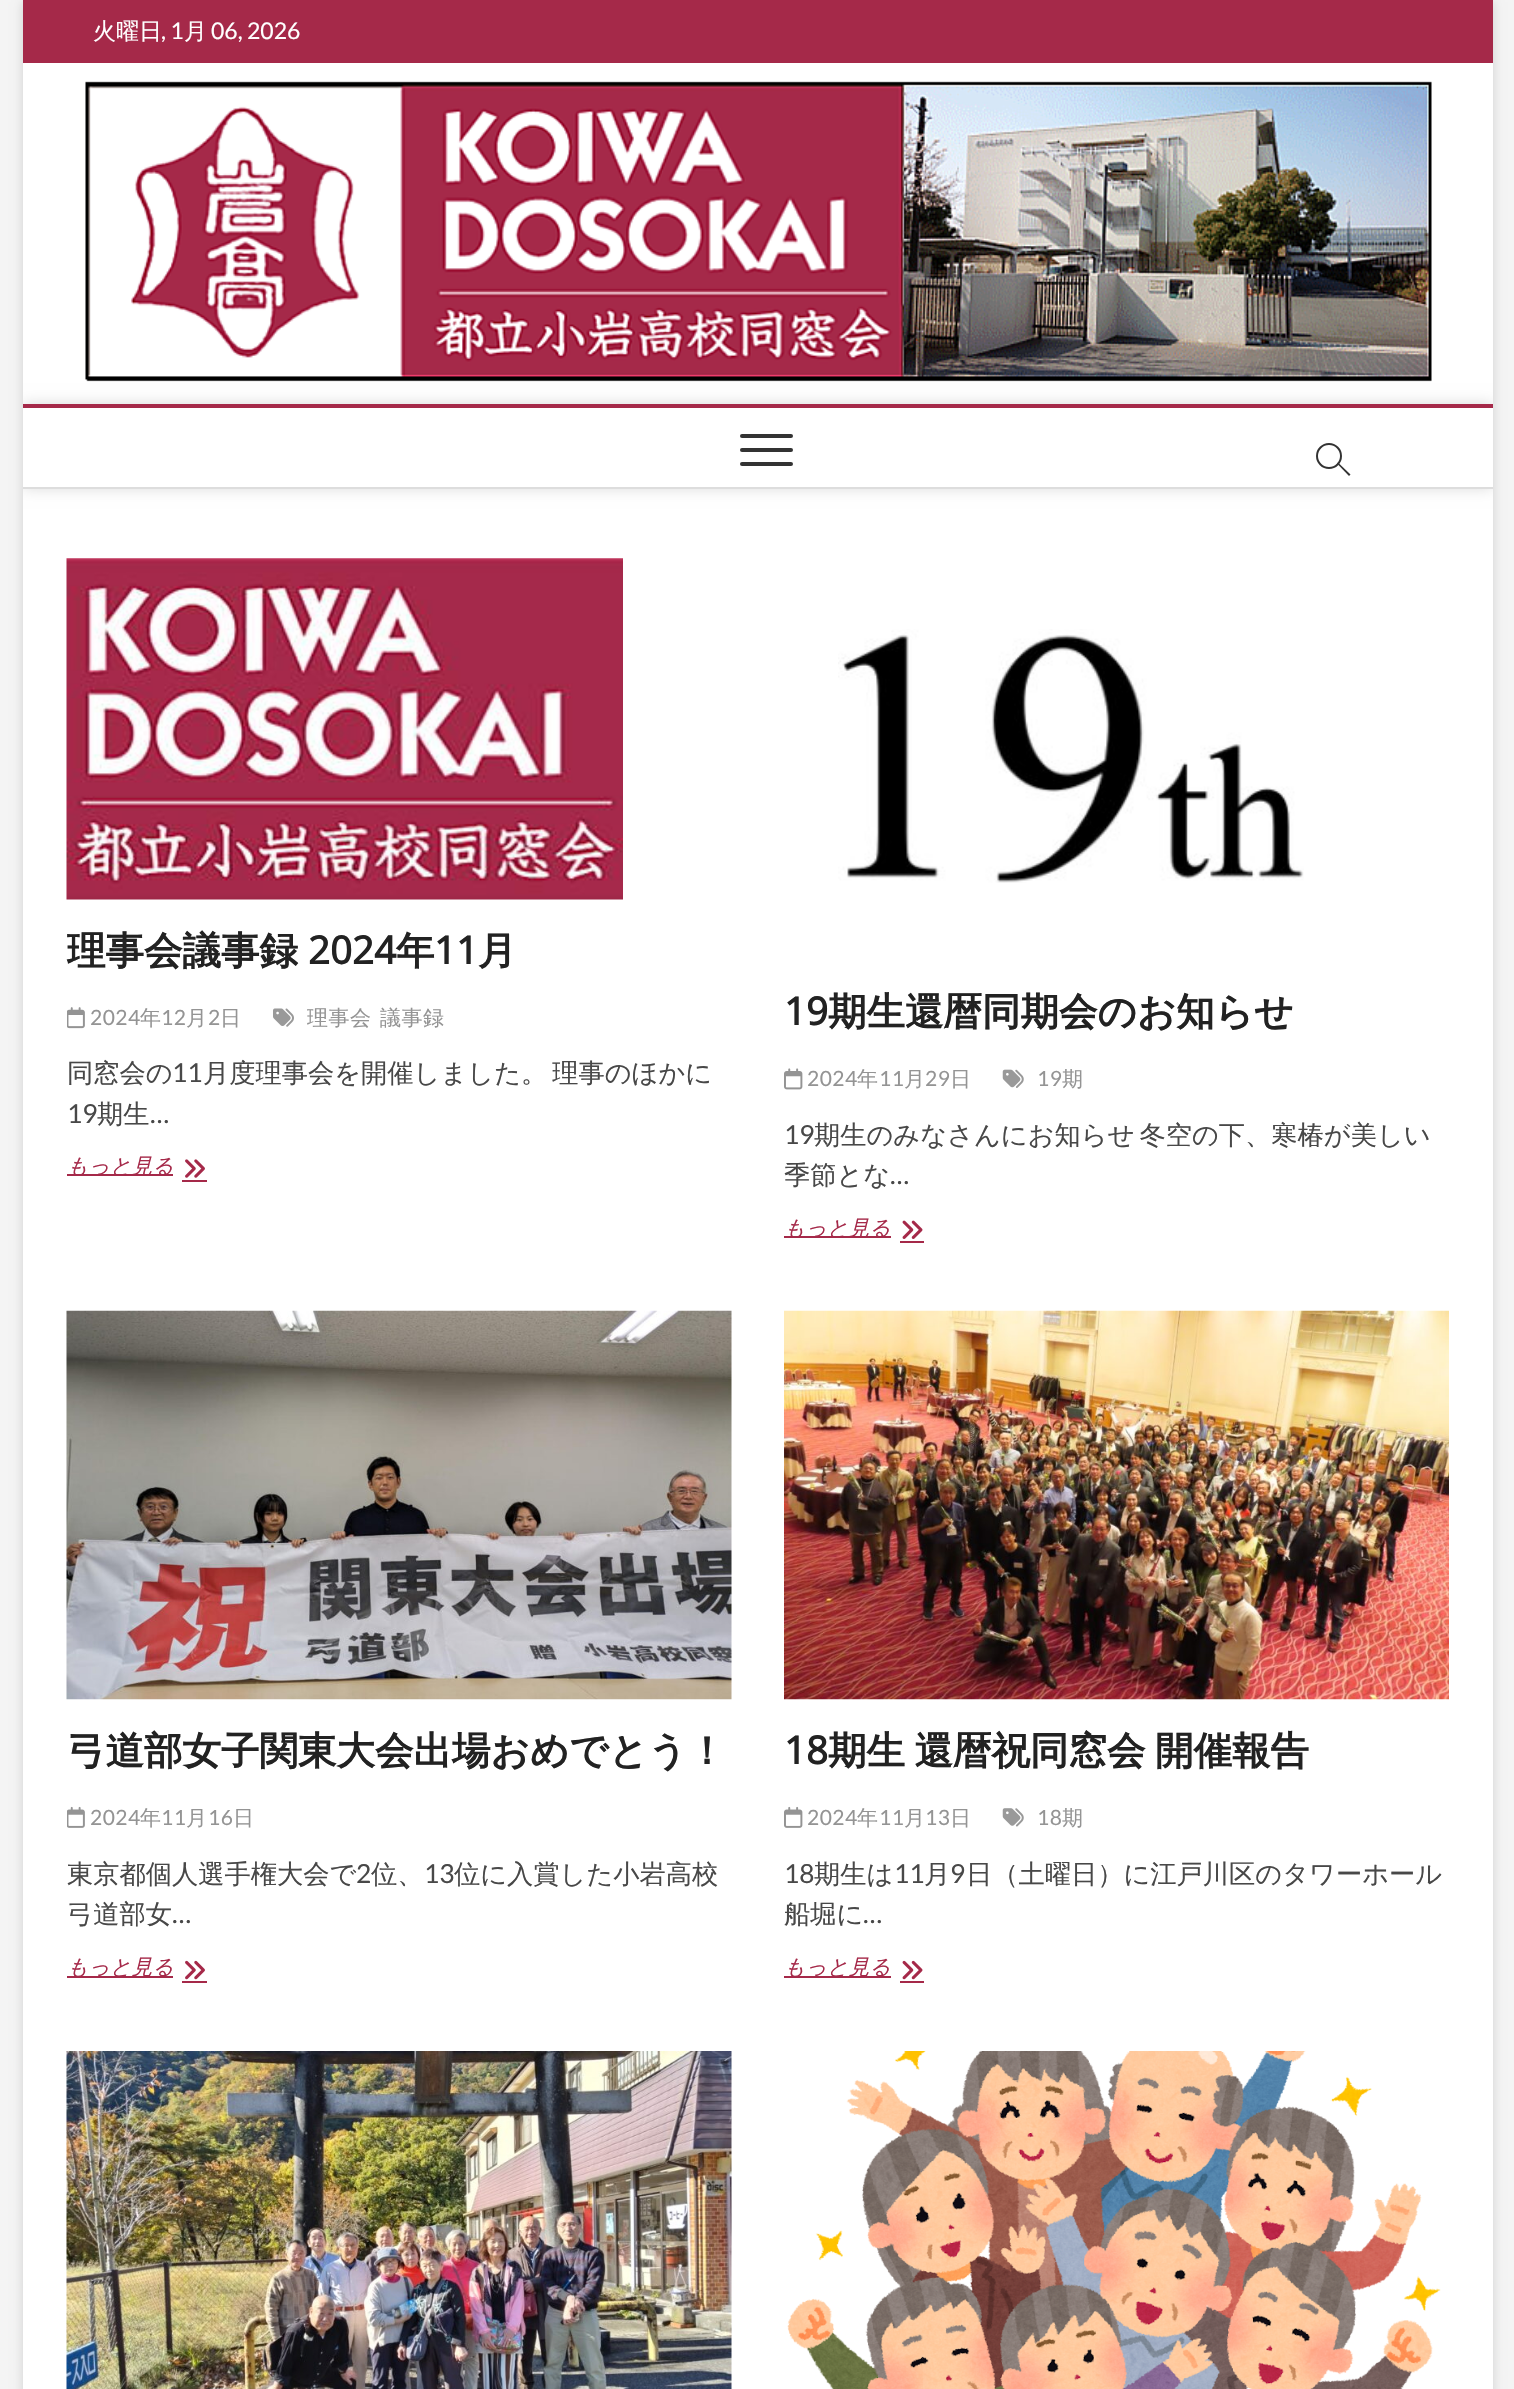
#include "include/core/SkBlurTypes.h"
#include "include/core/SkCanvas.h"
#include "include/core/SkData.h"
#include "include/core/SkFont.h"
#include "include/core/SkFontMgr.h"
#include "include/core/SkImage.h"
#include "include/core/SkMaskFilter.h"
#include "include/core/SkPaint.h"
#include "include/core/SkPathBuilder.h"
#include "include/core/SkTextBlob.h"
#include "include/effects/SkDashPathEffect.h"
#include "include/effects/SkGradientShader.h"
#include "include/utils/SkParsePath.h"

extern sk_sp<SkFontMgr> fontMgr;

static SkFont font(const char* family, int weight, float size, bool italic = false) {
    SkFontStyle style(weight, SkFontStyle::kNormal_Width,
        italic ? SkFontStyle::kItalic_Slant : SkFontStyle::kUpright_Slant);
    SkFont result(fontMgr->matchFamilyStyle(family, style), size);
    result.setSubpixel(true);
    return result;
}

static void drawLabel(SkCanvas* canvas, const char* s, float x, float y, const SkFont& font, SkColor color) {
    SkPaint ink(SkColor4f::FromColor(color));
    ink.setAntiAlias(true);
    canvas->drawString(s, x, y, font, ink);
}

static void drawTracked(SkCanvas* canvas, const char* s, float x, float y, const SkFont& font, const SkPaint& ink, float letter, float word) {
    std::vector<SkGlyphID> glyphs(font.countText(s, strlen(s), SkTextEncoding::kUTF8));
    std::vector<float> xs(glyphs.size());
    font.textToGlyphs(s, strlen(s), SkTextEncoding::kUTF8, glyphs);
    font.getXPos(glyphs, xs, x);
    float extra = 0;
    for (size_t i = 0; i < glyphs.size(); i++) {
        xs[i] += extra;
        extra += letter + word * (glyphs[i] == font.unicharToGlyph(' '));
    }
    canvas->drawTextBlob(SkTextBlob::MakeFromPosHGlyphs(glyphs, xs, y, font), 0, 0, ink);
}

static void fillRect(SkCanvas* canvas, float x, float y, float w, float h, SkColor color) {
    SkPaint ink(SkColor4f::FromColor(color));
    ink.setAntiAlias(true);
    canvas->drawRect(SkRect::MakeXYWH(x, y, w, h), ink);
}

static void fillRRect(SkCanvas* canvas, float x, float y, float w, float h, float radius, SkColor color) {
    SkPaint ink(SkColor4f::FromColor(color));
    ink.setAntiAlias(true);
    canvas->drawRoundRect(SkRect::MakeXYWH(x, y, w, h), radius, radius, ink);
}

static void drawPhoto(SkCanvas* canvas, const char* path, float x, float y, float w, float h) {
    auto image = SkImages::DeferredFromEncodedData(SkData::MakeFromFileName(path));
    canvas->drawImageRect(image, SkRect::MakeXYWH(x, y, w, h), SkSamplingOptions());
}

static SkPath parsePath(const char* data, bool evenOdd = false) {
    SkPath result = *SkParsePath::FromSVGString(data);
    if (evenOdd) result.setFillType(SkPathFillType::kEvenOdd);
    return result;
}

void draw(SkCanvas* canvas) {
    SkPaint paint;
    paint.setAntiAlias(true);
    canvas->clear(0xFFF4F4F4);
    paint.setColor(0x26000000);
    paint.setMaskFilter(SkMaskFilter::MakeBlur(kNormal_SkBlurStyle, 5));
    canvas->drawRect(SkRect::MakeXYWH(23, 2, 1470, 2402), paint);
    paint.setMaskFilter(nullptr);
    fillRect(canvas, 23, 63, 1470, 2326, 0xFFFFFFFF);
    fillRect(canvas, 23, 0, 1470, 63, 0xFFA52949);
    SkFont font1 = font("WenQuanYi Zen Hei", 500, 23);
    drawLabel(canvas, "火曜日", 93, 39, font1, 0xFFFFFFFF);
    SkFont font2 = font("Lato", 400, 23);
    drawLabel(canvas, ", 1", 161, 39, font2, 0xFFFFFFFF);
    drawLabel(canvas, "月", 184, 39, font1, 0xFFFFFFFF);
    drawLabel(canvas, "06, 2026", 211, 39, font2, 0xFFFFFFFF);
    drawPhoto(canvas, "assets/img1.png", 85, 81, 1347, 301);
    canvas->save();
    canvas->clipRect(SkRect::MakeXYWH(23, 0, 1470, 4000));
    paint.setMaskFilter(SkMaskFilter::MakeBlur(kNormal_SkBlurStyle, 7));
    canvas->drawRect(SkRect::MakeXYWH(23, 404, 1470, 84), paint);
    paint.setMaskFilter(nullptr);
    canvas->restore();
    fillRect(canvas, 23, 408, 1470, 79, 0xFFFFFFFF);
    fillRect(canvas, 23, 404, 1470, 4, 0xFFA52949);
    fillRect(canvas, 23, 487, 1470, 2, 0xFFDDDDDD);
    fillRRect(canvas, 740, 448, 53, 4, 2, 0xFF333333);
    fillRRect(canvas, 740, 434, 53, 4, 2, 0xFF333333);
    fillRRect(canvas, 740, 462, 53, 4, 2, 0xFF333333);
    paint.setStroke(true);
    paint.setStrokeWidth(2);
    paint.setColor(0xFF333333);
    canvas->drawCircle(1329, 456, 12, paint);
    paint.setStroke(false);
    canvas->drawPath(parsePath("M1337 463.5L1338 462.5L1350.5 474.5L1349 476Z"), paint);
    drawPhoto(canvas, "assets/img2.png", 66, 558, 557, 342);
    SkFont font3 = font("WenQuanYi Zen Hei", 700, 38.5f);
    drawLabel(canvas, "理事会議事録", 67, 964, font3, 0xFF222222);
    SkFont font4 = font("Open Sans", 700, 38.5f);
    drawLabel(canvas, "2024", 308, 964, font4, 0xFF222222);
    drawLabel(canvas, "年", 396, 964, font3, 0xFF222222);
    drawLabel(canvas, "11", 434, 964, font4, 0xFF222222);
    drawLabel(canvas, "月", 478, 964, font3, 0xFF222222);
    drawPhoto(canvas, "assets/img3.png", 67, 1007, 18, 22);
    SkFont font5 = font("Lato", 400, 21);
    paint.setColor(0xFF949494);
    drawTracked(canvas, "2024", 90, 1025, font5, paint, 0.5f, 0);
    SkFont font6 = font("WenQuanYi Zen Hei", 500, 21);
    drawTracked(canvas, "年", 140, 1025, font6, paint, 0.5f, 0);
    drawTracked(canvas, "12", 161, 1025, font5, paint, 0.5f, 0);
    drawTracked(canvas, "月", 186, 1025, font6, paint, 0.5f, 0);
    drawTracked(canvas, "2", 208, 1025, font5, paint, 0.5f, 0);
    drawTracked(canvas, "日", 220, 1025, font6, paint, 0.5f, 0);
    drawPhoto(canvas, "assets/img4.png", 273, 1008, 21, 19);
    drawTracked(canvas, "理事会", 307, 1025, font6, paint, 0.5f, 0);
    drawTracked(canvas, "議事録", 380, 1025, font6, paint, 0.5f, 0);
    SkFont font7 = font("WenQuanYi Zen Hei", 500, 26.25f);
    drawLabel(canvas, "同窓会の", 67, 1082, font7, 0xFF484848);
    SkFont font8 = font("Lato", 400, 26.25f);
    drawLabel(canvas, "11", 172, 1082, font8, 0xFF484848);
    paint.setColor(0xFF484848);
    drawTracked(canvas, "月度理事会を開催しました。 理事のほかに", 203, 1082, font7, paint, 0, -3);
    drawLabel(canvas, "19", 67, 1123, font8, 0xFF484848);
    drawLabel(canvas, "期生", 97, 1123, font7, 0xFF484848);
    drawLabel(canvas, "…", 150, 1123, font8, 0xFF484848);
    fillRect(canvas, 67, 1174, 106, 2, 0xFFA52949);
    SkFont font9 = font("WenQuanYi Zen Hei", 500, 21, true);
    drawLabel(canvas, "もっと見る", 67, 1173, font9, 0xFFA52949);
    drawPhoto(canvas, "assets/img5.png", 185, 1159, 20, 19);
    fillRect(canvas, 182, 1180, 25, 2, 0xFFA52949);
    drawPhoto(canvas, "assets/img6.png", 838, 629, 466, 254);
    drawLabel(canvas, "19", 784, 1025, font4, 0xFF222222);
    drawLabel(canvas, "期生還暦同期会のお知らせ", 828, 1025, font3, 0xFF222222);
    drawPhoto(canvas, "assets/img7.png", 784, 1068, 19, 22);
    paint.setColor(0xFF949494);
    drawTracked(canvas, "2024", 807, 1086, font5, paint, 0.5f, 0);
    drawTracked(canvas, "年", 857, 1086, font6, paint, 0.5f, 0);
    drawTracked(canvas, "11", 879, 1086, font5, paint, 0.5f, 0);
    drawTracked(canvas, "月", 904, 1086, font6, paint, 0.5f, 0);
    drawTracked(canvas, "29", 925, 1086, font5, paint, 0.5f, 0);
    drawTracked(canvas, "日", 950, 1086, font6, paint, 0.5f, 0);
    drawPhoto(canvas, "assets/img8.png", 1002, 1069, 22, 19);
    drawTracked(canvas, "19", 1037, 1086, font5, paint, 0.5f, 0);
    drawTracked(canvas, "期", 1062, 1086, font6, paint, 0.5f, 0);
    drawLabel(canvas, "19", 784, 1144, font8, 0xFF484848);
    paint.setColor(0xFF484848);
    drawTracked(canvas, "期生のみなさんにお知らせ 冬空の下、寒椿が美しい", 814, 1144, font7, paint, 0, -3);
    drawLabel(canvas, "季節とな", 784, 1184, font7, 0xFF484848);
    drawLabel(canvas, "…", 890, 1184, font8, 0xFF484848);
    fillRect(canvas, 784, 1236, 107, 2, 0xFFA52949);
    drawLabel(canvas, "もっと見る", 784, 1235, font9, 0xFFA52949);
    drawPhoto(canvas, "assets/img9.png", 902, 1220, 21, 19);
    fillRect(canvas, 900, 1241, 24, 2, 0xFFA52949);
    drawPhoto(canvas, "assets/img10.png", 66, 1310, 666, 390);
    drawLabel(canvas, "弓道部女子関東大会出場おめでとう！", 67, 1764, font3, 0xFF222222);
    drawPhoto(canvas, "assets/img11.png", 67, 1806, 18, 22);
    paint.setColor(0xFF949494);
    drawTracked(canvas, "2024", 90, 1825, font5, paint, 0.5f, 0);
    drawTracked(canvas, "年", 140, 1825, font6, paint, 0.5f, 0);
    drawTracked(canvas, "11", 161, 1825, font5, paint, 0.5f, 0);
    drawTracked(canvas, "月", 186, 1825, font6, paint, 0.5f, 0);
    drawTracked(canvas, "16", 208, 1825, font5, paint, 0.5f, 0);
    drawTracked(canvas, "日", 233, 1825, font6, paint, 0.5f, 0);
    drawLabel(canvas, "東京都個人選手権大会で", 67, 1883, font7, 0xFF484848);
    drawLabel(canvas, "2", 356, 1883, font8, 0xFF484848);
    drawLabel(canvas, "位、", 371, 1883, font7, 0xFF484848);
    drawLabel(canvas, "13", 424, 1883, font8, 0xFF484848);
    drawLabel(canvas, "位に入賞した小岩高校", 454, 1883, font7, 0xFF484848);
    drawLabel(canvas, "弓道部女", 67, 1923, font7, 0xFF484848);
    drawLabel(canvas, "…", 172, 1923, font8, 0xFF484848);
    fillRect(canvas, 67, 1976, 106, 2, 0xFFA52949);
    drawLabel(canvas, "もっと見る", 67, 1974, font9, 0xFFA52949);
    drawPhoto(canvas, "assets/img12.png", 185, 1960, 20, 20);
    fillRect(canvas, 182, 1981, 25, 2, 0xFFA52949);
    drawPhoto(canvas, "assets/img13.png", 784, 1310, 665, 390);
    drawLabel(canvas, "18", 784, 1764, font4, 0xFF222222);
    paint.setColor(0xFF222222);
    drawTracked(canvas, "期生 還暦祝同窓会 開催報告", 828, 1764, font3, paint, 0, -2);
    drawPhoto(canvas, "assets/img14.png", 784, 1806, 19, 22);
    paint.setColor(0xFF949494);
    drawTracked(canvas, "2024", 807, 1825, font5, paint, 0.5f, 0);
    drawTracked(canvas, "年", 857, 1825, font6, paint, 0.5f, 0);
    drawTracked(canvas, "11", 879, 1825, font5, paint, 0.5f, 0);
    drawTracked(canvas, "月", 904, 1825, font6, paint, 0.5f, 0);
    drawTracked(canvas, "13", 925, 1825, font5, paint, 0.5f, 0);
    drawTracked(canvas, "日", 950, 1825, font6, paint, 0.5f, 0);
    drawPhoto(canvas, "assets/img15.png", 1002, 1808, 22, 19);
    drawTracked(canvas, "18", 1037, 1825, font5, paint, 0.5f, 0);
    drawTracked(canvas, "期", 1062, 1825, font6, paint, 0.5f, 0);
    drawLabel(canvas, "18", 784, 1883, font8, 0xFF484848);
    drawLabel(canvas, "期生は", 814, 1883, font7, 0xFF484848);
    drawLabel(canvas, "11", 894, 1883, font8, 0xFF484848);
    drawLabel(canvas, "月", 924, 1883, font7, 0xFF484848);
    drawLabel(canvas, "9", 950, 1883, font8, 0xFF484848);
    drawLabel(canvas, "日（土曜日）に江戸川区のタワーホール", 966, 1883, font7, 0xFF484848);
    drawLabel(canvas, "船堀に", 784, 1923, font7, 0xFF484848);
    drawLabel(canvas, "…", 863, 1923, font8, 0xFF484848);
    fillRect(canvas, 784, 1976, 107, 2, 0xFFA52949);
    drawLabel(canvas, "もっと見る", 784, 1974, font9, 0xFFA52949);
    drawPhoto(canvas, "assets/img16.png", 902, 1960, 21, 20);
    fillRect(canvas, 900, 1981, 24, 2, 0xFFA52949);
    drawPhoto(canvas, "assets/img17.png", 66, 2051, 666, 338);
    drawPhoto(canvas, "assets/img18.png", 787, 2051, 654, 338);
}
